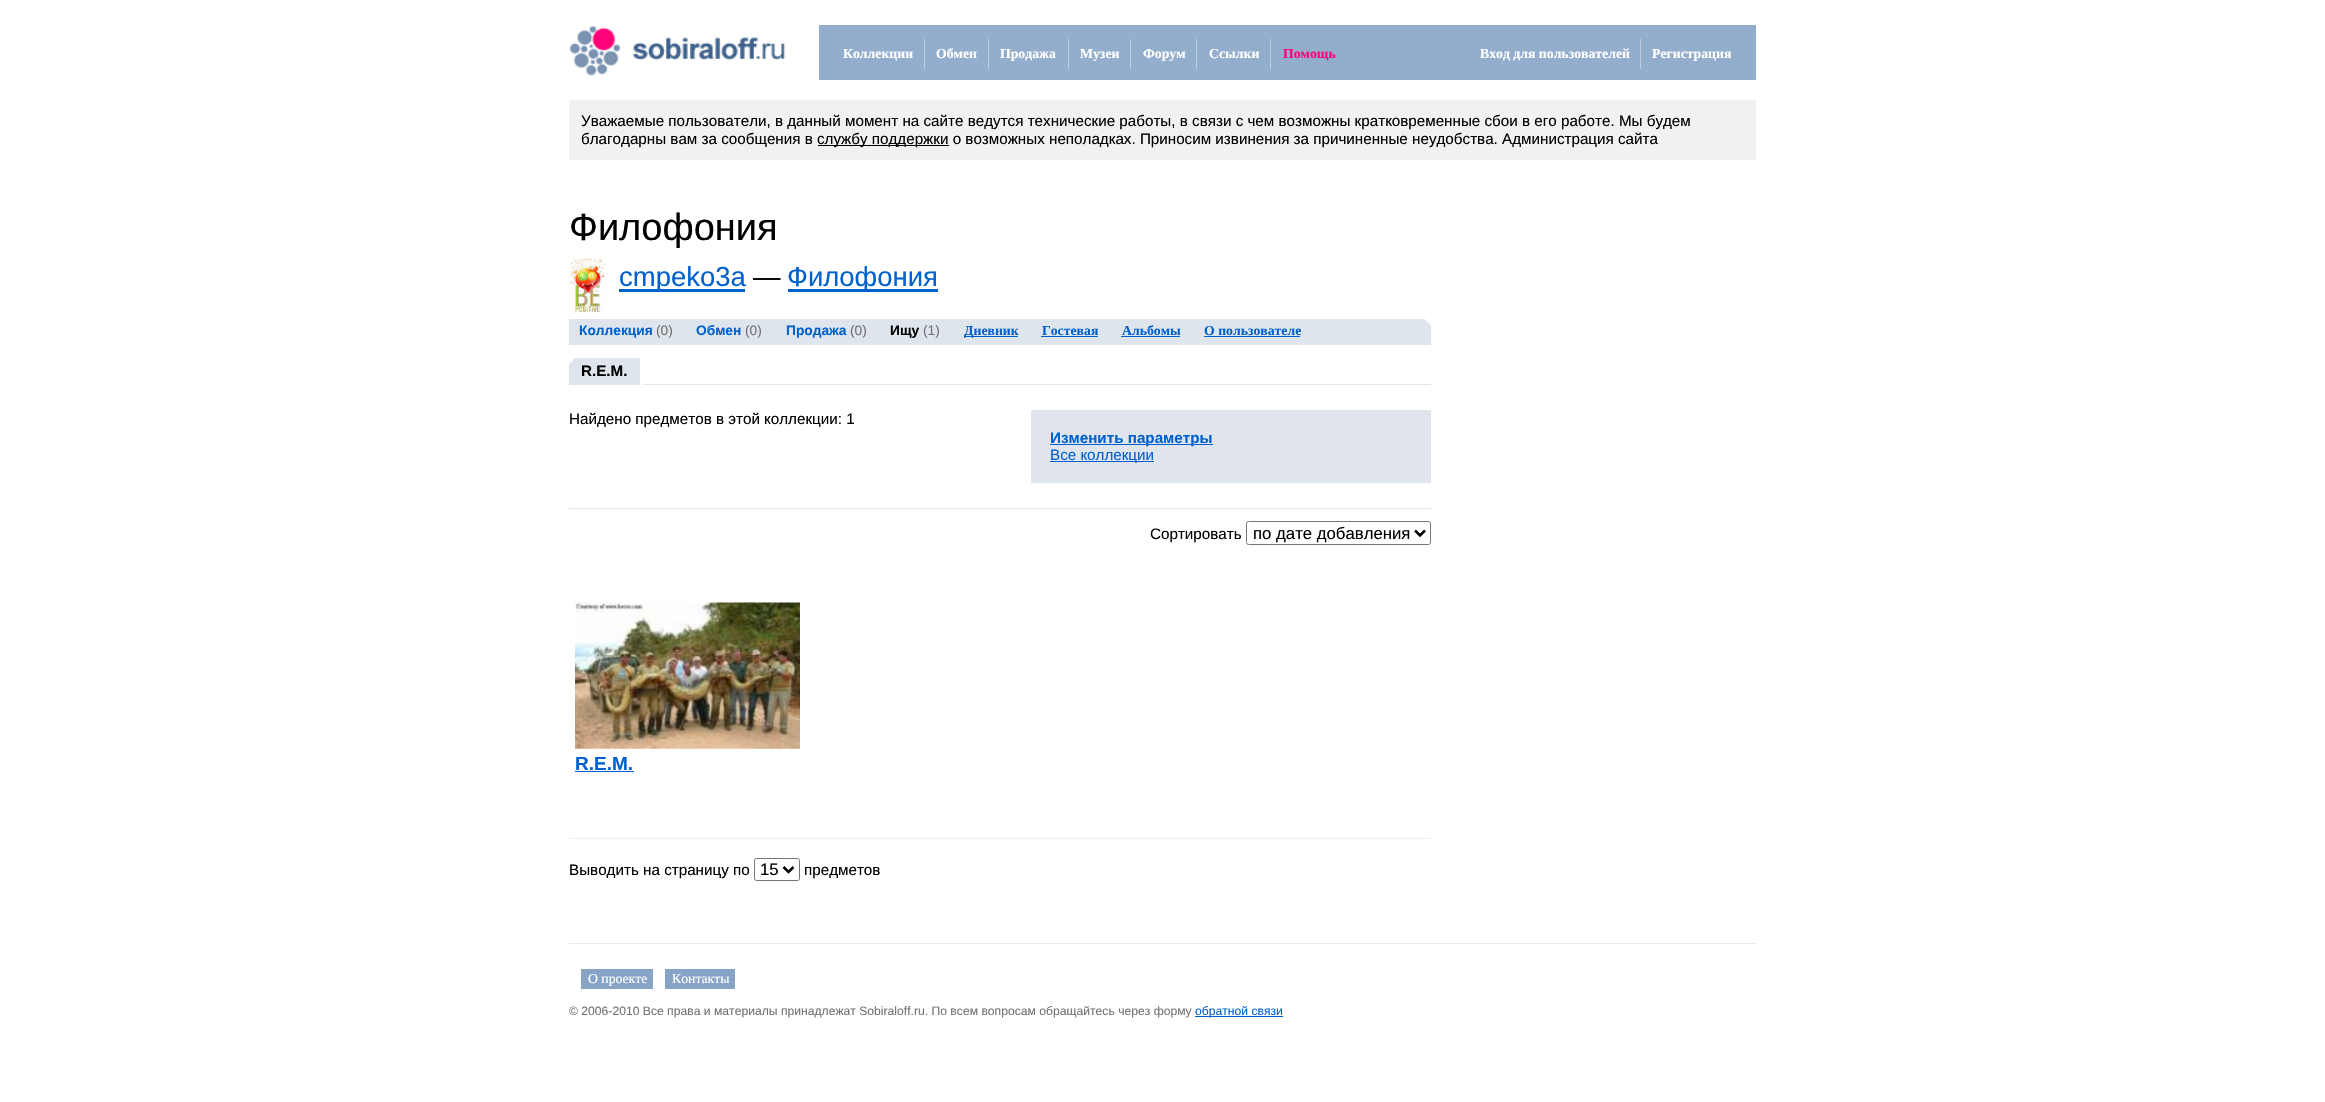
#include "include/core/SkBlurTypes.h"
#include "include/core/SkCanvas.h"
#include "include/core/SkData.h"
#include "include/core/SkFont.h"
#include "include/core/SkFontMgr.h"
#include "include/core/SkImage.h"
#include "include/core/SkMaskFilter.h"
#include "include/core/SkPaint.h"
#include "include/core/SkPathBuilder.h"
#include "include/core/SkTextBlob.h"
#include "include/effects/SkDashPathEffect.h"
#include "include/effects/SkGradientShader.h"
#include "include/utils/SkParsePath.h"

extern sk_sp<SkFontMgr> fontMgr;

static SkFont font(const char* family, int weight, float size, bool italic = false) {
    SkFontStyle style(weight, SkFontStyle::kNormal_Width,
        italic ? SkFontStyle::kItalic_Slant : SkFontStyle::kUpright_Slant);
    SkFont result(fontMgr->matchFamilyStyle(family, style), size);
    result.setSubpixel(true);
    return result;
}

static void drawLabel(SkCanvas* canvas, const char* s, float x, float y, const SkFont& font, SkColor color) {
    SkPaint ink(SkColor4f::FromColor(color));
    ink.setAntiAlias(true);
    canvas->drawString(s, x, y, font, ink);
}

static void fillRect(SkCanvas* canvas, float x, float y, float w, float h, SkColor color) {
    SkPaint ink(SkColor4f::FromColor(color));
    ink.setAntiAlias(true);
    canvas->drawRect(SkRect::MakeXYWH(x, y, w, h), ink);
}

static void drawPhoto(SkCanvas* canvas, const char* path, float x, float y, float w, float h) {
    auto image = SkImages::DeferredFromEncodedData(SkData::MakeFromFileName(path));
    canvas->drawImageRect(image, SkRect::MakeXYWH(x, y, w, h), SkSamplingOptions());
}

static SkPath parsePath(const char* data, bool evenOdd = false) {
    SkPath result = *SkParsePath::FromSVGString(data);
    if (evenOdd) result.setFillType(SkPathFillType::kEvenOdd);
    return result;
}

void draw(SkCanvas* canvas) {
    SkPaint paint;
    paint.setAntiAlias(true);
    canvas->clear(0xFFFFFFFF);
    drawPhoto(canvas, "assets/img1.png", 569, 26, 217, 50);
    fillRect(canvas, 819, 25, 937, 55, 0xFF93ADCC);
    SkFont font1 = font("Liberation Serif", 700, 13.75f);
    drawLabel(canvas, "Коллекции", 843, 58, font1, 0xFFFFFFFF);
    fillRect(canvas, 924, 39, 1, 30, 0xFFBECEE0);
    drawLabel(canvas, "Обмен", 936, 58, font1, 0xFFFFFFFF);
    fillRect(canvas, 988, 39, 1, 30, 0xFFBECEE0);
    drawLabel(canvas, "Продажа", 1000, 58, font1, 0xFFFFFFFF);
    fillRect(canvas, 1068, 39, 1, 30, 0xFFBECEE0);
    drawLabel(canvas, "Музеи", 1080, 58, font1, 0xFFFFFFFF);
    fillRect(canvas, 1130, 39, 1, 30, 0xFFBECEE0);
    drawLabel(canvas, "Форум", 1143, 58, font1, 0xFFFFFFFF);
    fillRect(canvas, 1196, 39, 1, 30, 0xFFBECEE0);
    drawLabel(canvas, "Ссылки", 1209, 58, font1, 0xFFFFFFFF);
    fillRect(canvas, 1270, 39, 1, 30, 0xFFBECEE0);
    drawLabel(canvas, "Помощь", 1283, 58, font1, 0xFFFF0078);
    drawLabel(canvas, "Вход для пользователей", 1480, 58, font1, 0xFFFFFFFF);
    fillRect(canvas, 1640, 39, 1, 30, 0xFFBECEE0);
    drawLabel(canvas, "Регистрация", 1652, 58, font1, 0xFFFFFFFF);
    fillRect(canvas, 569, 100, 1187, 60, 0xFFF1F1F1);
    SkFont font2 = font("Liberation Sans", 400, 15.2f);
    drawLabel(canvas, "Уважаемые пользователи, в данный момент на сайте ведутся технические работы, в связи с чем возможны кратковременные сбои в его работе. Мы будем", 581, 126, font2, 0xFF000000);
    drawLabel(canvas, "благодарны вам за сообщения в", 581, 144, font2, 0xFF000000);
    fillRect(canvas, 818, 145, 131, 1, 0xFF000000);
    drawLabel(canvas, "службу поддержки о возможных неполадках. Приносим извинения за причиненные неудобства. Администрация сайта", 817, 144, font2, 0xFF000000);
    SkFont font3 = font("Liberation Sans", 400, 38);
    drawLabel(canvas, "Филофония", 569, 240, font3, 0xFF000000);
    drawPhoto(canvas, "assets/img2.png", 569, 258, 37, 55);
    fillRect(canvas, 619, 289, 126, 3, 0xFF0061CE);
    SkFont font4 = font("Liberation Sans", 400, 27.5f);
    drawLabel(canvas, "cmpeko3a", 619, 286, font4, 0xFF0061CE);
    drawLabel(canvas, "—", 753, 286, font4, 0xFF000000);
    fillRect(canvas, 788, 289, 150, 3, 0xFF0061CE);
    drawLabel(canvas, "Филофония", 787, 286, font4, 0xFF0061CE);
    fillRect(canvas, 569, 319, 862, 26, 0xFFDFE5EC);
    drawPhoto(canvas, "assets/img3.png", 1425, 319, 6, 6);
    SkFont font5 = font("Liberation Sans", 700, 13.75f);
    drawLabel(canvas, "Коллекция", 579, 335, font5, 0xFF0061CE);
    SkFont font6 = font("Liberation Sans", 400, 13.75f);
    drawLabel(canvas, "(0)", 656, 335, font6, 0xFF727272);
    drawLabel(canvas, "Обмен", 696, 335, font5, 0xFF0061CE);
    drawLabel(canvas, "(0)", 745, 335, font6, 0xFF727272);
    drawLabel(canvas, "Продажа", 786, 335, font5, 0xFF0061CE);
    drawLabel(canvas, "(0)", 850, 335, font6, 0xFF727272);
    drawLabel(canvas, "Ищу", 890, 335, font5, 0xFF000000);
    drawLabel(canvas, "(1)", 923, 335, font6, 0xFF727272);
    fillRect(canvas, 964, 336, 54, 1, 0xFF0061CE);
    drawLabel(canvas, "Дневник", 964, 335, font1, 0xFF0061CE);
    drawLabel(canvas, "Гостевая", 1042, 335, font1, 0xFF0061CE);
    fillRect(canvas, 1041, 336, 57, 1, 0xFF0061CE);
    drawLabel(canvas, "Альбомы", 1122, 335, font1, 0xFF0061CE);
    fillRect(canvas, 1121, 336, 59, 1, 0xFF0061CE);
    drawLabel(canvas, "О пользователе", 1204, 335, font1, 0xFF0061CE);
    fillRect(canvas, 1204, 336, 96, 1, 0xFF0061CE);
    fillRect(canvas, 643, 384, 788, 1, 0xFFDFE5EC);
    fillRect(canvas, 569, 358, 71, 27, 0xFFDFE5EC);
    drawPhoto(canvas, "assets/img4.png", 569, 358, 6, 6);
    SkFont font7 = font("Liberation Sans", 700, 15.2f);
    drawLabel(canvas, "R.E.M.", 581, 376, font7, 0xFF000000);
    fillRect(canvas, 569, 508, 862, 1, 0xFFE5E5E5);
    drawLabel(canvas, "Найдено предметов в этой коллекции: 1", 569, 424, font2, 0xFF000000);
    fillRect(canvas, 1031, 410, 400, 73, 0xFFE0E4ED);
    fillRect(canvas, 1050, 444, 163, 1, 0xFF0061CE);
    drawLabel(canvas, "Изменить параметры", 1050, 443, font7, 0xFF0061CE);
    fillRect(canvas, 1050, 461, 104, 1, 0xFF0061CE);
    drawLabel(canvas, "Все коллекции", 1050, 460, font2, 0xFF0061CE);
    drawLabel(canvas, "Сортировать", 1150, 539, font2, 0xFF000000);
    paint.setStroke(true);
    paint.setStrokeWidth(1);
    paint.setColor(0xFF767676);
    canvas->drawRoundRect(SkRect::MakeXYWH(1246.5f, 521.5f, 184, 23), 2, 2, paint);
    paint.setStrokeWidth(2.5f);
    paint.setColor(0xFF000000);
    canvas->drawPath(parsePath("M1415 530.5L1420 535.5L1425 530.5"), paint);
    SkFont font8 = font("Liberation Sans", 400, 16.75f);
    drawLabel(canvas, "по дате добавления", 1253, 539, font8, 0xFF000000);
    drawPhoto(canvas, "assets/img5.png", 575, 602, 225, 147);
    SkFont font9 = font("Liberation Sans", 700, 19);
    drawLabel(canvas, "R.E.M.", 575, 770, font9, 0xFF0061CE);
    fillRect(canvas, 575, 771, 59, 1, 0xFF0061CE);
    fillRect(canvas, 569, 838, 862, 1, 0xFFEDEDED);
    drawLabel(canvas, "Выводить на страницу по", 569, 875, font2, 0xFF000000);
    paint.setStrokeWidth(1);
    paint.setColor(0xFF767676);
    canvas->drawRoundRect(SkRect::MakeXYWH(754.5f, 858.5f, 45, 22), 2, 2, paint);
    paint.setStrokeWidth(2.5f);
    paint.setColor(0xFF000000);
    canvas->drawPath(parsePath("M783.5 867L788.5 872L793.5 867"), paint);
    drawLabel(canvas, "15", 760, 875, font8, 0xFF000000);
    drawLabel(canvas, "предметов", 804, 875, font2, 0xFF000000);
    fillRect(canvas, 569, 943, 1187, 1, 0xFFEAEAEA);
    fillRect(canvas, 581, 969, 72, 20, 0xFF87A4C6);
    SkFont font10 = font("Liberation Serif", 400, 13.75f);
    drawLabel(canvas, "О проекте", 588, 983, font10, 0xFFFFFFFF);
    fillRect(canvas, 665, 969, 70, 20, 0xFF87A4C6);
    drawLabel(canvas, "Контакты", 672, 983, font10, 0xFFFFFFFF);
    SkFont font11 = font("Liberation Sans", 400, 12.15f);
    drawLabel(canvas, "© 2006-2010 Все права и материалы принадлежат Sobiraloff.ru. По всем вопросам обращайтесь через форму", 569, 1015, font11, 0xFF727272);
    fillRect(canvas, 1195, 1016, 88, 1, 0xFF0061CE);
    drawLabel(canvas, "обратной связи", 1195, 1015, font11, 0xFF0061CE);
}
